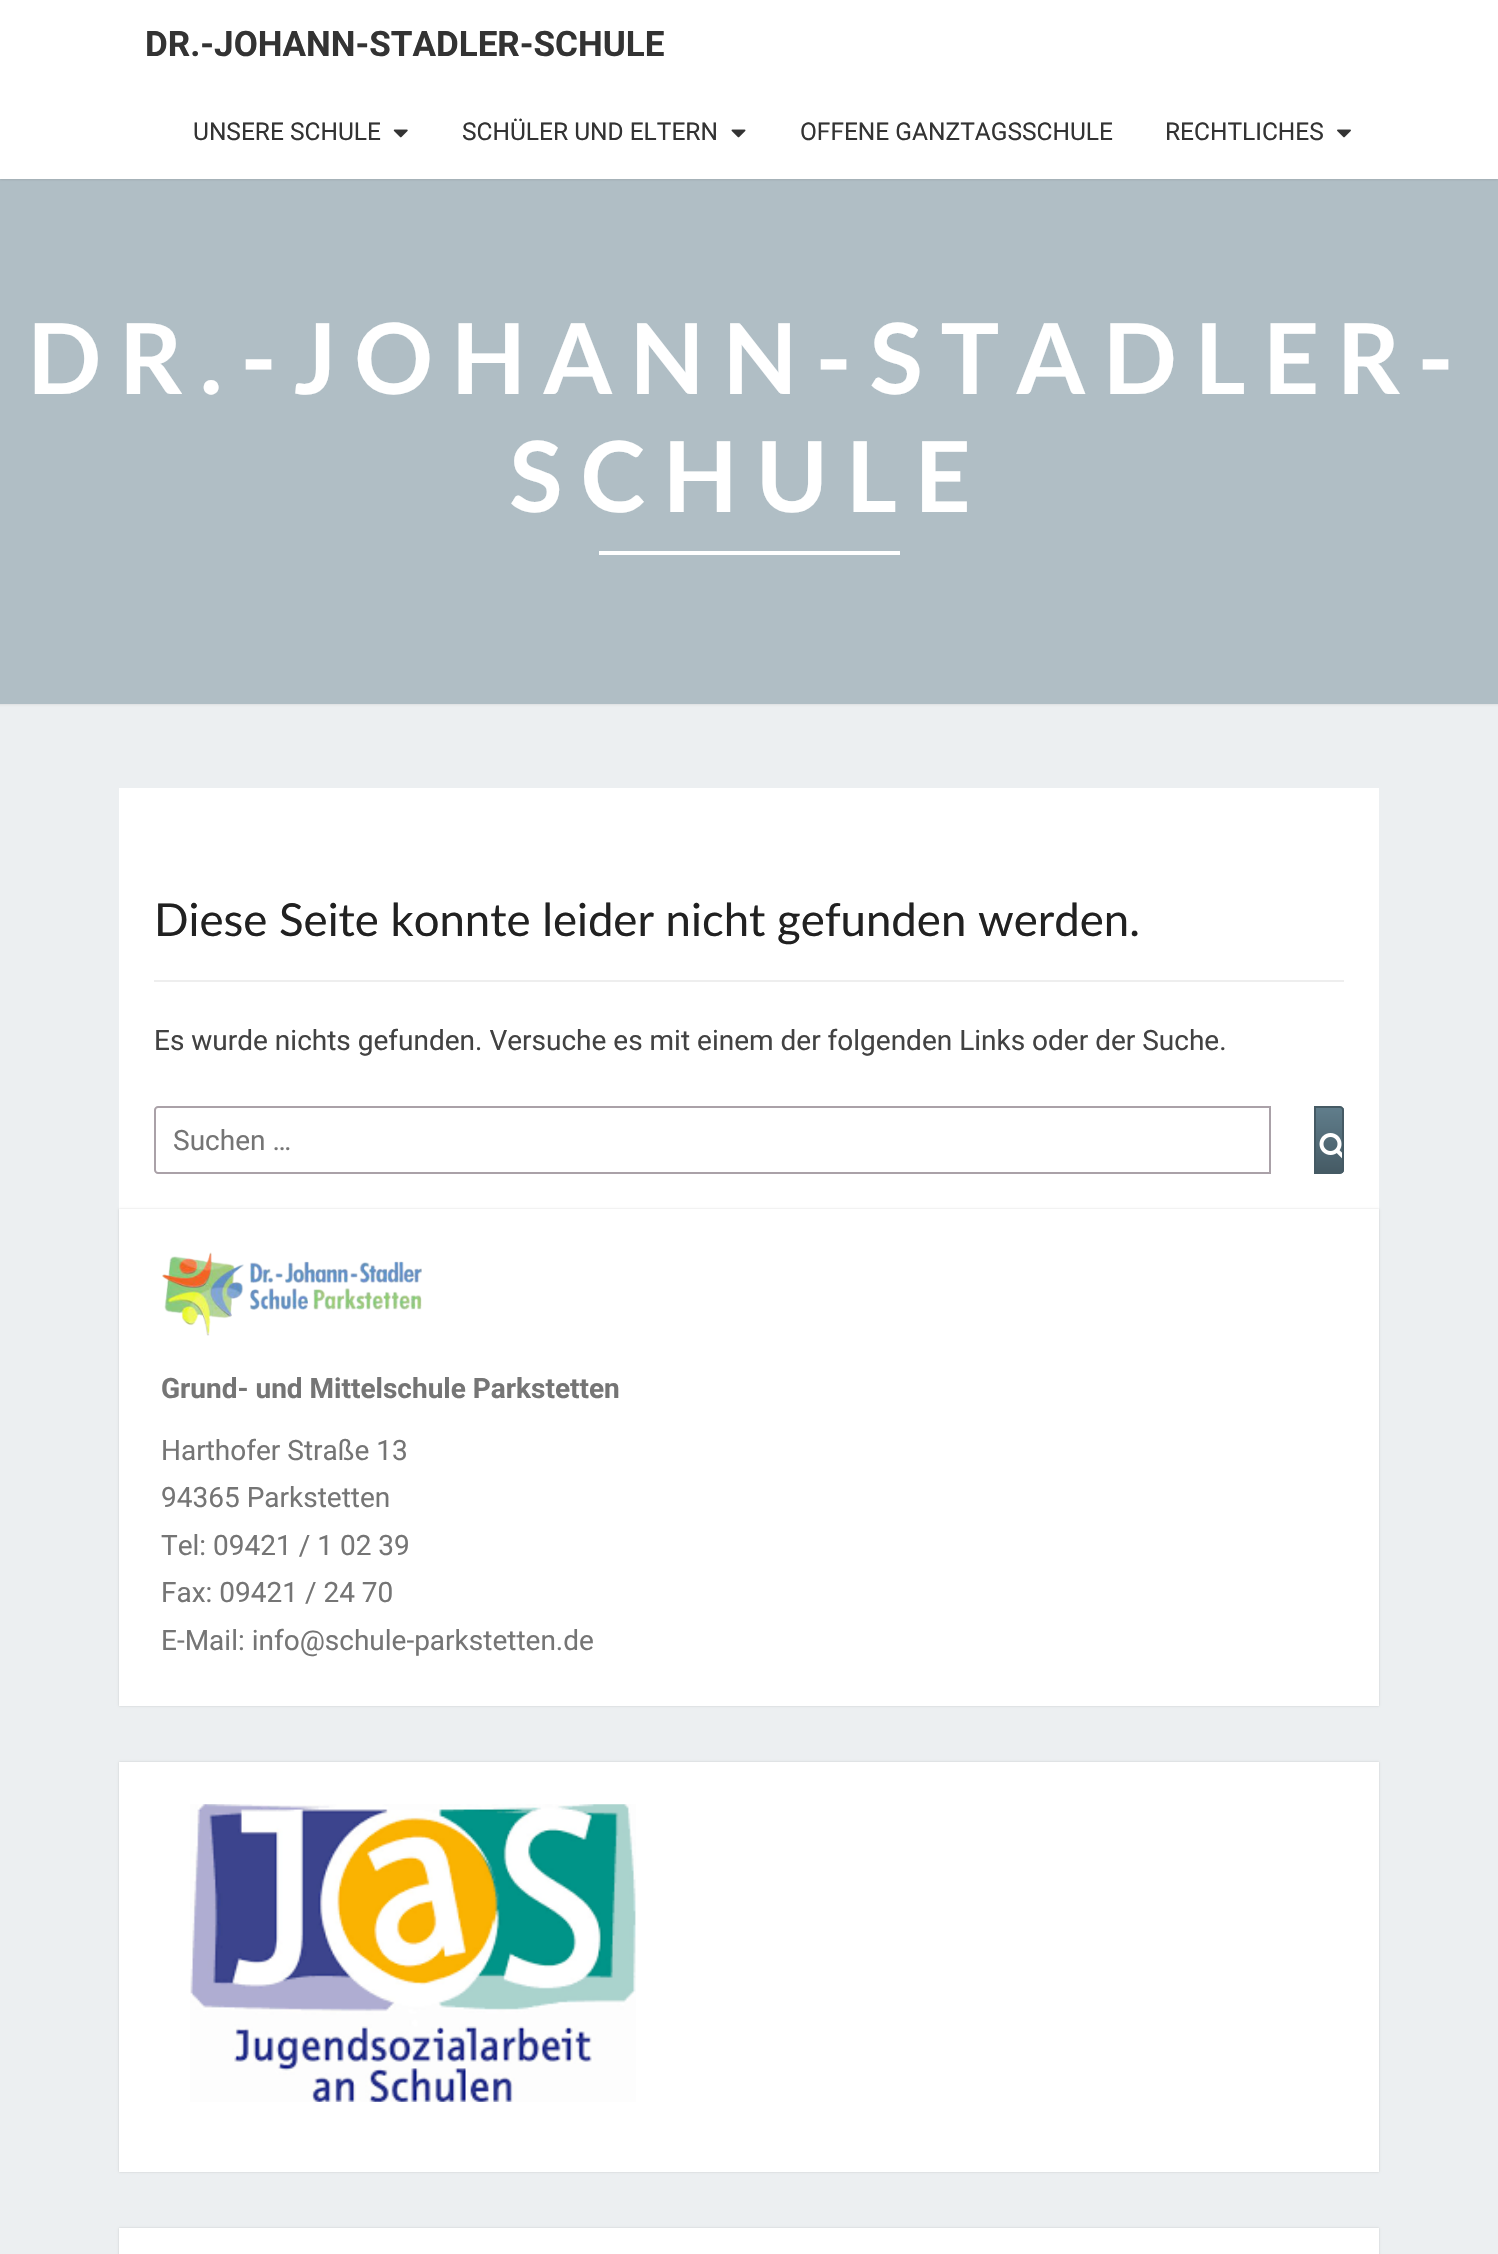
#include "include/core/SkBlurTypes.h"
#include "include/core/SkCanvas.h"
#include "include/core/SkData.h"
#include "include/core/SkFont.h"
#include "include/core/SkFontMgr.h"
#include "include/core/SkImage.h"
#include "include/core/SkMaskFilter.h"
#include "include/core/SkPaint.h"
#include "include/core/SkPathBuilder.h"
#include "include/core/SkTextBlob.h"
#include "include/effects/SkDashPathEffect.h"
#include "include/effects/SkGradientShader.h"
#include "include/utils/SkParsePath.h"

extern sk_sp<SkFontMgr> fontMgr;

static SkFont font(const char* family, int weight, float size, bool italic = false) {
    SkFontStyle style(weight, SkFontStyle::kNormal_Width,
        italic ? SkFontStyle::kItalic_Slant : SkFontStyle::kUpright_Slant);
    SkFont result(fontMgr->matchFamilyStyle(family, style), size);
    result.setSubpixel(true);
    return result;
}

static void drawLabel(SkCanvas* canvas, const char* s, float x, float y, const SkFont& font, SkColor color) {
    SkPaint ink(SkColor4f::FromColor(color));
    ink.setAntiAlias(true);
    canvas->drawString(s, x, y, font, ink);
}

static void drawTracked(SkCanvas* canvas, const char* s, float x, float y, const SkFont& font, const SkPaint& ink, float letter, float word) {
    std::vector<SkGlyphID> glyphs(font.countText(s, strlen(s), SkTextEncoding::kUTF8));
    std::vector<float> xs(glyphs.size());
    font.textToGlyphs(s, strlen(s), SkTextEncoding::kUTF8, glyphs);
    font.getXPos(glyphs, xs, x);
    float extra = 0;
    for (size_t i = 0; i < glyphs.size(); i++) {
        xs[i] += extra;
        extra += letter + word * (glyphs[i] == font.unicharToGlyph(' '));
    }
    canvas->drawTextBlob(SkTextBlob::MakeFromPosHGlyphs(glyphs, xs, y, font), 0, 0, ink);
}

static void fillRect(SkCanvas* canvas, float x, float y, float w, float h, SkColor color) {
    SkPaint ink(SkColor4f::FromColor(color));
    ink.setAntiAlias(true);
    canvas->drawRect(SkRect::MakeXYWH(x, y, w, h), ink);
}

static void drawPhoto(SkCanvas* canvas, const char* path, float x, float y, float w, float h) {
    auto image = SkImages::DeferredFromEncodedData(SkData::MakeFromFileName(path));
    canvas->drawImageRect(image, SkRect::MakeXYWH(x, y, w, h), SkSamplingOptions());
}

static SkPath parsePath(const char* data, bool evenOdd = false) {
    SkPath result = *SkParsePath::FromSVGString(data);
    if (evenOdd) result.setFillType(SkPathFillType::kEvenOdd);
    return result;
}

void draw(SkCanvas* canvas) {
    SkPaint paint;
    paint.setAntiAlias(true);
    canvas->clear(0xFFECEFF1);
    paint.setColor(0x4DB6B6B6);
    paint.setMaskFilter(SkMaskFilter::MakeBlur(kNormal_SkBlurStyle, 1));
    canvas->drawRect(SkRect::MakeXYWH(-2, 177, 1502, 528), paint);
    paint.setMaskFilter(nullptr);
    fillRect(canvas, 0, 179, 1498, 525, 0xFFB0BEC5);
    paint.setColor(0x33646464);
    paint.setMaskFilter(SkMaskFilter::MakeBlur(kNormal_SkBlurStyle, 1));
    canvas->drawRect(SkRect::MakeXYWH(0, 2, 1498, 178), paint);
    paint.setMaskFilter(nullptr);
    fillRect(canvas, 0, 0, 1498, 179, 0xFFFFFFFF);
    SkFont font1 = font("Roboto", 700, 35);
    drawLabel(canvas, "DR.-JOHANN-STADLER-SCHULE", 145, 56, font1, 0xFF333333);
    SkFont font2 = font("Roboto", 400, 24.5f);
    drawLabel(canvas, "UNSERE SCHULE", 193, 140, font2, 0xFF333333);
    drawPhoto(canvas, "assets/img1.png", 393, 129, 15, 9);
    drawLabel(canvas, "SCHÜLER UND ELTERN", 462, 140, font2, 0xFF333333);
    drawPhoto(canvas, "assets/img2.png", 731, 129, 15, 9);
    drawLabel(canvas, "OFFENE GANZTAGSSCHULE", 800, 140, font2, 0xFF333333);
    drawLabel(canvas, "RECHTLICHES", 1165, 140, font2, 0xFF333333);
    drawPhoto(canvas, "assets/img3.png", 1337, 129, 14, 9);
    SkFont font3 = font("Lato", 700, 98);
    paint.setColor(0xFFFFFFFF);
    drawTracked(canvas, "DR.-JOHANN-STADLER-", 27, 394, font3, paint, 17.5f, 0);
    drawTracked(canvas, "SCHULE", 509, 512, font3, paint, 17.5f, 0);
    fillRect(canvas, 599, 551, 301, 4, 0xFFFFFFFF);
    fillRect(canvas, 119, 788, 1260, 421, 0xFFFFFFFF);
    fillRect(canvas, 154, 980, 1190, 2, 0xFFEEEEEE);
    SkFont font4 = font("Lato", 400, 45.5f);
    drawLabel(canvas, "Diese Seite konnte leider nicht gefunden werden.", 154, 936, font4, 0xFF212121);
    SkFont font5 = font("Roboto", 400, 28);
    drawLabel(canvas, "Es wurde nichts gefunden. Versuche es mit einem der folgenden Links oder der Suche.", 154, 1050, font5, 0xFF424242);
    paint.setStroke(true);
    paint.setStrokeWidth(2);
    paint.setColor(0xFFAAA1A8);
    canvas->drawPath(parsePath("M158 1107H1270V1173H158C156.5 1173 155 1171.5 155 1170V1110C155 1108.5 156.5 1107 158 1107Z"), paint);
    drawLabel(canvas, "Suchen …", 173, 1150, font5, 0xFF757575);
    canvas->save();
    canvas->clipPath(parsePath("M1314 1106H1340C1342 1106 1344 1108 1344 1110V1170C1344 1172 1342 1174 1340 1174H1314Z"), true);
    paint.setStroke(false);
    {
        const SkColor colors[] = {0xFF607D8B, 0xFF455A64};
        const float stops[] = {0, 1};
        const SkPoint ends[] = {{1329, 1108}, {1329, 1173}};
        paint.setShader(SkGradientShader::MakeLinear(ends, colors, stops, 2, SkTileMode::kClamp));
        paint.setAlpha(255);
    }
    canvas->drawRect(SkRect::MakeXYWH(1316, 1108, 28, 65), paint);
    canvas->restore();
    paint.setStroke(true);
    paint.setShader(nullptr);
    paint.setColor(0xFF455A64);
    canvas->drawPath(parsePath("M1315 1107H1340C1341.5 1107 1343 1108.5 1343 1110V1170C1343 1171.5 1341.5 1173 1340 1173H1315Z"), paint);
    drawPhoto(canvas, "assets/img4.png", 1319, 1133, 23, 26);
    paint.setStroke(false);
    paint.setColor(0x26000000);
    paint.setMaskFilter(SkMaskFilter::MakeBlur(kNormal_SkBlurStyle, 1));
    canvas->drawRect(SkRect::MakeXYWH(119, 1209, 1260, 497), paint);
    paint.setMaskFilter(nullptr);
    fillRect(canvas, 119, 1209, 1260, 497, 0xFFFFFFFF);
    drawPhoto(canvas, "assets/img5.png", 162, 1252, 260, 84);
    SkFont font6 = font("Roboto", 700, 28);
    drawLabel(canvas, "Grund- und Mittelschule Parkstetten", 161, 1398, font6, 0xFF757575);
    drawLabel(canvas, "Harthofer Straße 13", 161, 1460, font5, 0xFF757575);
    drawLabel(canvas, "94365 Parkstetten", 161, 1507, font5, 0xFF757575);
    drawLabel(canvas, "Tel: 09421 / 1 02 39", 161, 1555, font5, 0xFF757575);
    drawLabel(canvas, "Fax: 09421 / 24 70", 161, 1602, font5, 0xFF757575);
    drawLabel(canvas, "E-Mail: info@schule-parkstetten.de", 161, 1650, font5, 0xFF757575);
    paint.setMaskFilter(SkMaskFilter::MakeBlur(kNormal_SkBlurStyle, 1));
    canvas->drawRect(SkRect::MakeXYWH(119, 1762, 1260, 410), paint);
    paint.setMaskFilter(nullptr);
    fillRect(canvas, 119, 1762, 1260, 410, 0xFFFFFFFF);
    drawPhoto(canvas, "assets/img6.png", 190, 1804, 446, 298);
    paint.setMaskFilter(SkMaskFilter::MakeBlur(kNormal_SkBlurStyle, 1));
    canvas->drawRect(SkRect::MakeXYWH(119, 2228, 1260, 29), paint);
    paint.setMaskFilter(nullptr);
    fillRect(canvas, 119, 2228, 1260, 26, 0xFFFFFFFF);
}
